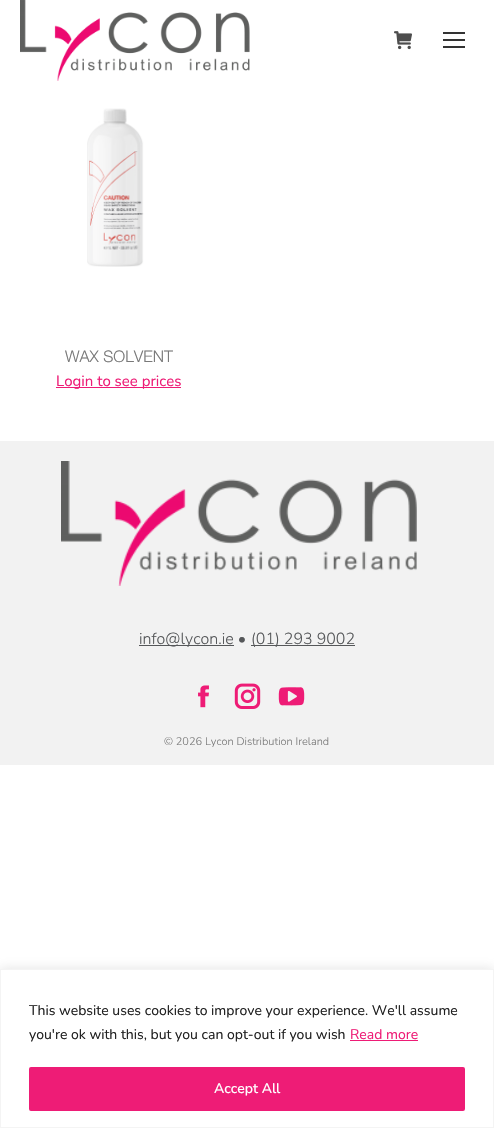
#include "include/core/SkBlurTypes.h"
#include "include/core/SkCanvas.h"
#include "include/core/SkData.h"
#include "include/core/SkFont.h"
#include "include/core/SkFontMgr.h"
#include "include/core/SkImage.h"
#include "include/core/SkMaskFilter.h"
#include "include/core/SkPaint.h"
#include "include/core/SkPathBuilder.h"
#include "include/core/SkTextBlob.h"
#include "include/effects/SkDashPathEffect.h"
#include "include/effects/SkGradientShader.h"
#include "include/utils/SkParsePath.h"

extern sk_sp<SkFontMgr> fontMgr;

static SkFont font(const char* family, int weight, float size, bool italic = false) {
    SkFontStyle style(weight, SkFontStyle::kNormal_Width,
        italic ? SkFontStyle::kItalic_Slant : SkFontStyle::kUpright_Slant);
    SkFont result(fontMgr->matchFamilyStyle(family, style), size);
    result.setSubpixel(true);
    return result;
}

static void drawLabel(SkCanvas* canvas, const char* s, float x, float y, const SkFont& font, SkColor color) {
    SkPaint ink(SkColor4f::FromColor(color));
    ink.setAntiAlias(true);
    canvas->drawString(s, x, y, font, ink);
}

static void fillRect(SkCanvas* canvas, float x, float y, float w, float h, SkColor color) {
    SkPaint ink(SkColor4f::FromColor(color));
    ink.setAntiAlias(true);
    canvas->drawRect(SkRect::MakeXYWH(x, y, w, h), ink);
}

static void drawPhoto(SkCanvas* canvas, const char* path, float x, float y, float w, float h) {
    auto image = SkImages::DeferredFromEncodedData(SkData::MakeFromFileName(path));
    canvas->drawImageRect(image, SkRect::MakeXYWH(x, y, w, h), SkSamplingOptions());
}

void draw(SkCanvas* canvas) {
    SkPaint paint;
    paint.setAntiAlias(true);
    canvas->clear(0xFFFFFFFF);
    drawPhoto(canvas, "assets/img1.png", 20, 0, 230, 81);
    drawPhoto(canvas, "assets/img2.png", 394, 31, 18, 19);
    fillRect(canvas, 443, 32, 22, 2, 0xFF333333);
    fillRect(canvas, 443, 39, 22, 2, 0xFF333333);
    fillRect(canvas, 443, 46, 22, 2, 0xFF333333);
    drawPhoto(canvas, "assets/img3.png", 87, 108, 57, 159);
    SkFont font1 = font("Helvetica Neue", 300, 16);
    drawLabel(canvas, "WAX SOLVENT", 65, 362, font1, 0xFF797979);
    fillRect(canvas, 56, 387, 125, 1, 0xFFEE1C76);
    SkFont font2 = font("Nunito", 400, 15);
    drawLabel(canvas, "Login to see prices", 56, 386, font2, 0xFFEE1C76);
    fillRect(canvas, 0, 441, 494, 324, 0xFFF2F2F2);
    drawPhoto(canvas, "assets/img4.png", 61, 461, 356, 125);
    fillRect(canvas, 139, 645, 95, 1, 0xFF555759);
    SkFont font3 = font("Nunito", 300, 16);
    drawLabel(canvas, "info@lycon.ie •", 139, 644, font3, 0xFF555759);
    fillRect(canvas, 251, 645, 104, 1, 0xFF555759);
    drawLabel(canvas, "(01) 293 9002", 251, 644, font3, 0xFF555759);
    drawPhoto(canvas, "assets/img5.png", 198, 685, 11, 23);
    drawPhoto(canvas, "assets/img6.png", 234, 683, 27, 26);
    drawPhoto(canvas, "assets/img7.png", 278, 687, 27, 19);
    SkFont font4 = font("Nunito", 300, 11);
    drawLabel(canvas, "© 2026 Lycon Distribution Ireland", 164, 745, font4, 0xFF797979);
    paint.setColor(0x4DACABAB);
    paint.setMaskFilter(SkMaskFilter::MakeBlur(kNormal_SkBlurStyle, 5));
    canvas->drawRect(SkRect::MakeXYWH(0, 968, 494, 159), paint);
    paint.setMaskFilter(nullptr);
    paint.setColor(0xFFFFFFFF);
    canvas->drawRect(SkRect::MakeXYWH(0.5f, 969.5f, 493, 158), paint);
    paint.setStroke(true);
    paint.setStrokeWidth(1);
    paint.setColor(0xFFF4F4F4);
    canvas->drawRect(SkRect::MakeXYWH(0.5f, 969.5f, 493, 158), paint);
    SkFont font5 = font("Nunito", 400, 14);
    drawLabel(canvas, "This website uses cookies to improve your experience. We'll assume", 29, 1015, font5, 0xFF212121);
    drawLabel(canvas, "you're ok with this, but you can opt-out if you wish", 29, 1039, font5, 0xFF212121);
    drawLabel(canvas, "Read more", 350, 1039, font5, 0xFFEE1C76);
    fillRect(canvas, 350, 1040, 68, 1, 0xFFEE1C76);
    paint.setStroke(false);
    paint.setColor(0xFFEE1C76);
    canvas->drawRoundRect(SkRect::MakeXYWH(30, 1068, 434, 42), 1, 1, paint);
    paint.setStroke(true);
    paint.setStrokeWidth(2);
    canvas->drawRoundRect(SkRect::MakeXYWH(30, 1068, 434, 42), 1, 1, paint);
    SkFont font6 = font("Nunito", 500, 14);
    drawLabel(canvas, "Accept All", 214, 1093, font6, 0xFFFFFFFF);
}
